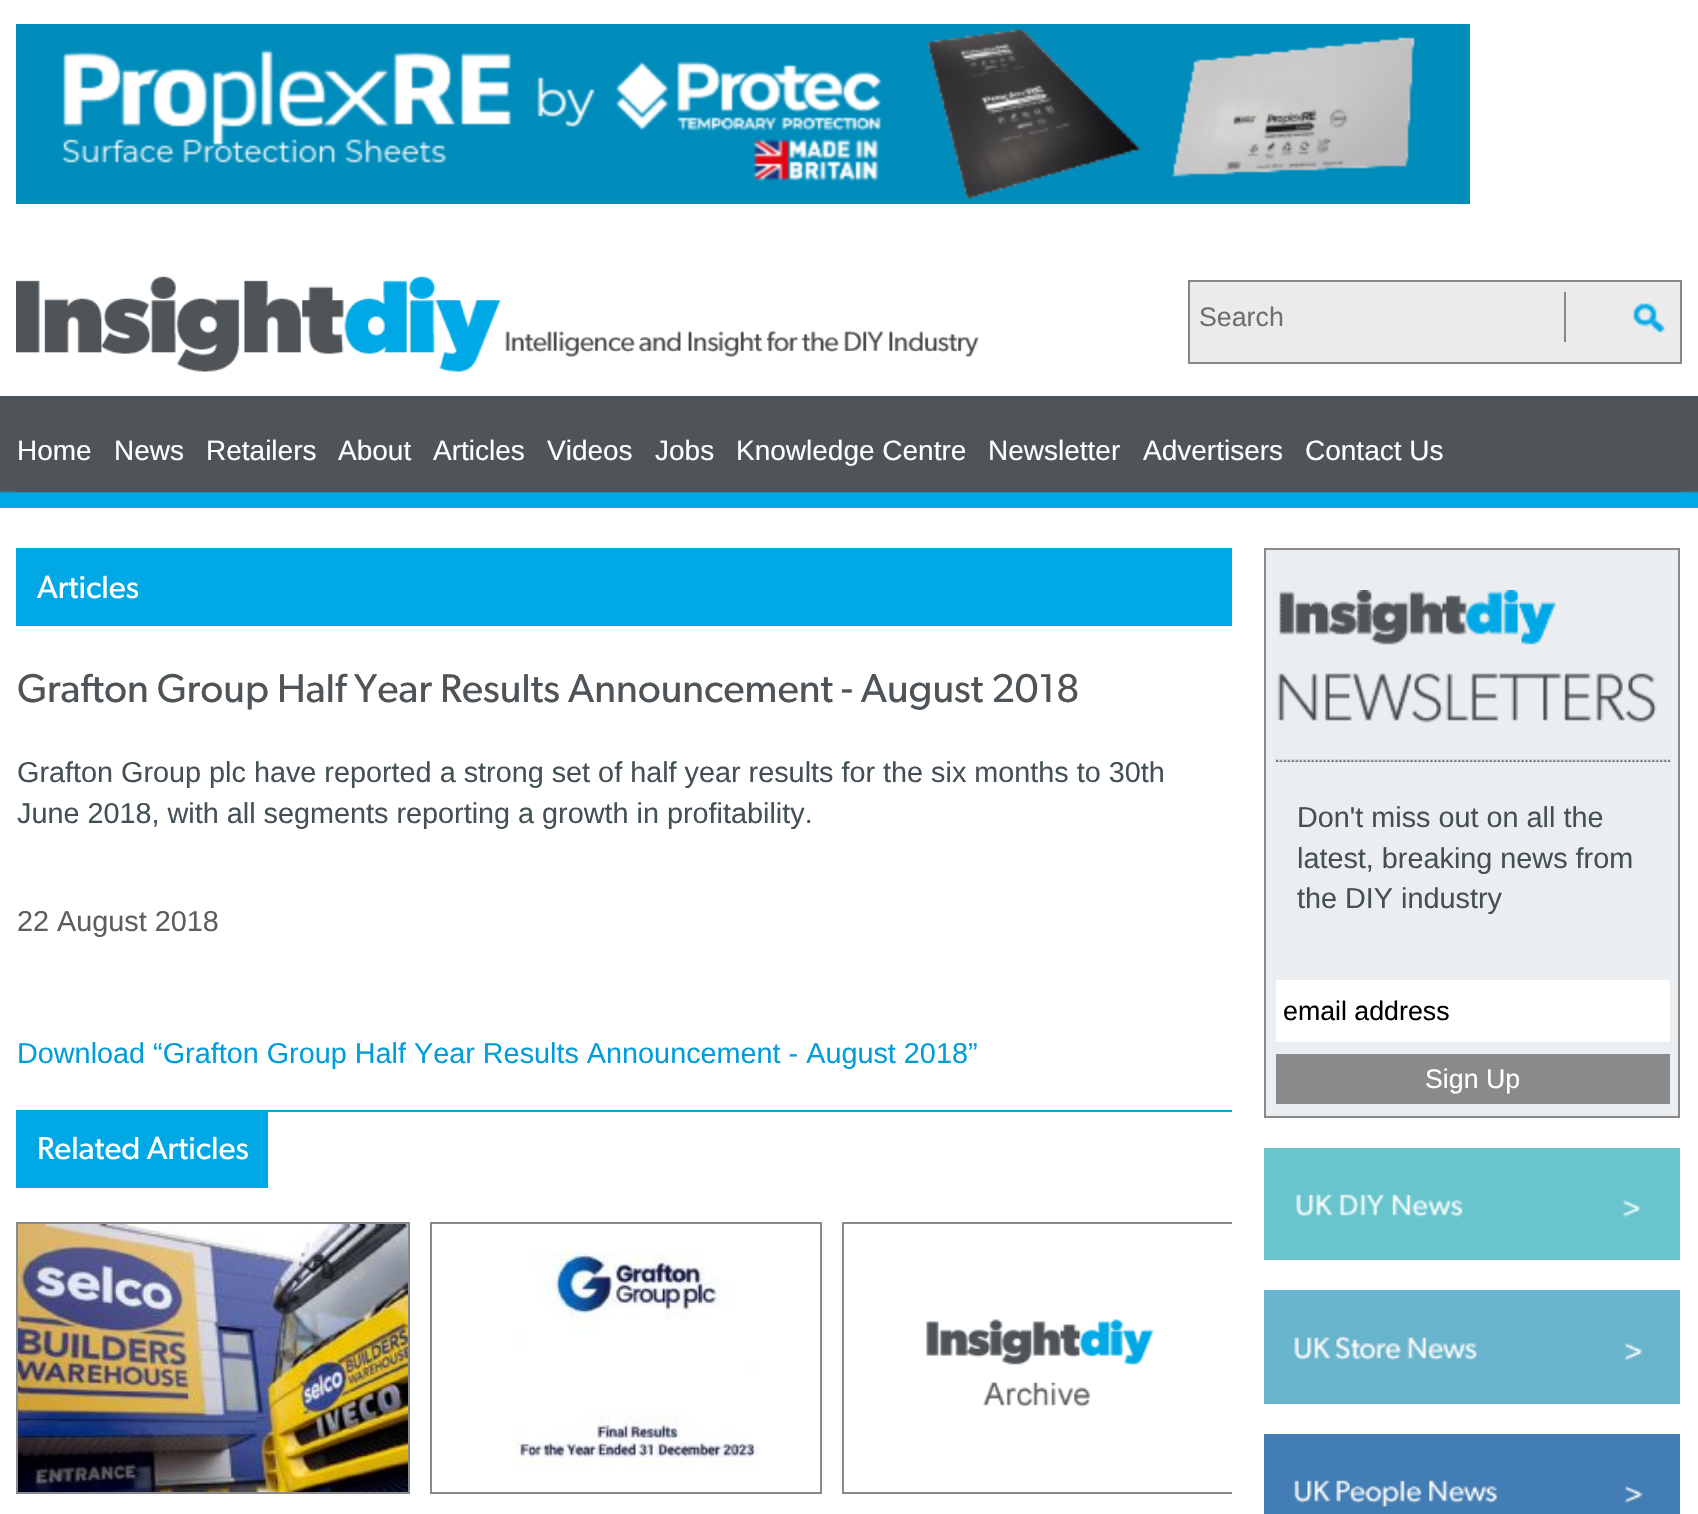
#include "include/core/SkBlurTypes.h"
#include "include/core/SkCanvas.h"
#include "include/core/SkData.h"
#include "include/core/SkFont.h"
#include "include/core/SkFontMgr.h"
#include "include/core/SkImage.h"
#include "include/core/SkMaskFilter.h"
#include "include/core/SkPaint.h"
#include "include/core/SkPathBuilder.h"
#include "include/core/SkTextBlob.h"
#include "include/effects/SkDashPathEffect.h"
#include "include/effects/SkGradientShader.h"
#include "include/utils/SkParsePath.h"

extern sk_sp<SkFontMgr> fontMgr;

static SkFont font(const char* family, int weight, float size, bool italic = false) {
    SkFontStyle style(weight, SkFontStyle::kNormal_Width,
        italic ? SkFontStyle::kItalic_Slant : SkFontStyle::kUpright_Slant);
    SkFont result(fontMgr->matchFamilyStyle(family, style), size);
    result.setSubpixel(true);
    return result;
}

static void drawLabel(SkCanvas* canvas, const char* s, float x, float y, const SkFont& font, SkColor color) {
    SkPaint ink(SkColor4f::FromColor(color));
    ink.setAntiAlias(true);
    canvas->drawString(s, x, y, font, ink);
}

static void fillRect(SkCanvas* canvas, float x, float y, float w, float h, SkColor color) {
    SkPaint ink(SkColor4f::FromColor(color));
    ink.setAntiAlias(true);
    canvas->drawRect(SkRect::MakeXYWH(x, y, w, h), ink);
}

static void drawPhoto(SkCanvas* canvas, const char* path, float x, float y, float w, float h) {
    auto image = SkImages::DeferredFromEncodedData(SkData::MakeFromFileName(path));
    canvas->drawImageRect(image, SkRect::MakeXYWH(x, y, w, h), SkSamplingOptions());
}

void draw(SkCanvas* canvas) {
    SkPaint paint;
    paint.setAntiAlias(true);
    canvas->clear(0xFFFFFFFF);
    drawPhoto(canvas, "assets/img1.png", 16, 24, 1454, 180);
    drawPhoto(canvas, "assets/img2.png", 16, 276, 963, 96);
    paint.setColor(0xFFEBEBEB);
    canvas->drawRect(SkRect::MakeXYWH(1189, 281, 492, 82), paint);
    paint.setStroke(true);
    paint.setStrokeWidth(2);
    paint.setColor(0xFF868887);
    canvas->drawRect(SkRect::MakeXYWH(1189, 281, 492, 82), paint);
    fillRect(canvas, 1564, 292, 2, 50, 0xFF868887);
    SkFont font1 = font("Liberation Sans", 400, 26.75f);
    drawLabel(canvas, "Search", 1199, 326, font1, 0xFF6C7072);
    drawPhoto(canvas, "assets/img3.png", 1633, 303, 32, 30);
    drawPhoto(canvas, "assets/img4.png", 0, 396, 1698, 112);
    fillRect(canvas, 16, 491, 1666, 1, 0xFF4E5458);
    SkFont font2 = font("Liberation Sans", 400, 28);
    drawLabel(canvas, "Home", 17, 460, font2, 0xFFFFFFFF);
    drawLabel(canvas, "News", 114, 460, font2, 0xFFFFFFFF);
    drawLabel(canvas, "Retailers", 206, 460, font2, 0xFFFFFFFF);
    drawLabel(canvas, "About", 338, 460, font2, 0xFFFFFFFF);
    drawLabel(canvas, "Articles", 433, 460, font2, 0xFFFFFFFF);
    drawLabel(canvas, "Videos", 547, 460, font2, 0xFFFFFFFF);
    drawLabel(canvas, "Jobs", 655, 460, font2, 0xFFFFFFFF);
    drawLabel(canvas, "Knowledge Centre", 736, 460, font2, 0xFFFFFFFF);
    drawLabel(canvas, "Newsletter", 988, 460, font2, 0xFFFFFFFF);
    drawLabel(canvas, "Advertisers", 1143, 460, font2, 0xFFFFFFFF);
    drawLabel(canvas, "Contact Us", 1305, 460, font2, 0xFFFFFFFF);
    fillRect(canvas, 16, 548, 1216, 78, 0xFF00A8E6);
    SkFont font3 = font("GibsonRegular", 400, 32);
    drawLabel(canvas, "Articles", 37, 598, font3, 0xFFFFFFFF);
    SkFont font4 = font("GibsonRegular", 400, 40.3f);
    drawLabel(canvas, "Grafton Group Half Year Results Announcement - August 2018", 17, 702, font4, 0xFF4E5458);
    SkFont font5 = font("Liberation Sans", 400, 28.8f);
    drawLabel(canvas, "Grafton Group plc have reported a strong set of half year results for the six months to 30th", 17, 782, font5, 0xFF435055);
    drawLabel(canvas, "June 2018, with all segments reporting a growth in profitability.", 17, 823, font5, 0xFF435055);
    drawLabel(canvas, "22 August 2018", 17, 931, font5, 0xFF5A5E61);
    drawLabel(canvas, "Download “Grafton Group Half Year Results Announcement - August 2018”", 17, 1063, font5, 0xFF019DDA);
    fillRect(canvas, 268, 1110, 964, 2, 0xFF00A8E6);
    fillRect(canvas, 16, 1110, 252, 78, 0xFF00A8E6);
    drawLabel(canvas, "Related Articles", 37, 1159, font3, 0xFFFFFFFF);
    paint.setColor(0xFF898A8B);
    canvas->drawRect(SkRect::MakeXYWH(17, 1223, 392, 270), paint);
    drawPhoto(canvas, "assets/img5.png", 18, 1224, 390, 268);
    canvas->drawRect(SkRect::MakeXYWH(431, 1223, 390, 270), paint);
    drawPhoto(canvas, "assets/img6.png", 514, 1250, 246, 217);
    canvas->save();
    canvas->clipRect(SkRect::MakeXYWH(16, 508, 1216, 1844));
    canvas->drawRect(SkRect::MakeXYWH(843, 1223, 392, 270), paint);
    canvas->restore();
    drawPhoto(canvas, "assets/img7.png", 926, 1319, 228, 88);
    paint.setStroke(false);
    paint.setColor(0xFFEBEEF0);
    canvas->drawRect(SkRect::MakeXYWH(1265, 549, 414, 568), paint);
    paint.setStroke(true);
    paint.setColor(0xFF898A8B);
    canvas->drawRect(SkRect::MakeXYWH(1265, 549, 414, 568), paint);
    drawPhoto(canvas, "assets/img8.png", 1276, 590, 394, 172);
    drawLabel(canvas, "Don't miss out on all the", 1297, 827, font5, 0xFF435055);
    drawLabel(canvas, "latest, breaking news from", 1297, 868, font5, 0xFF435055);
    drawLabel(canvas, "the DIY industry", 1297, 908, font5, 0xFF435055);
    fillRect(canvas, 1276, 980, 394, 62, 0xFFFFFFFF);
    drawLabel(canvas, "email address", 1283, 1020, font1, 0xFF000000);
    fillRect(canvas, 1276, 1054, 394, 50, 0xFF898A8B);
    drawLabel(canvas, "Sign Up", 1425, 1088, font1, 0xFFFFFFFF);
    drawPhoto(canvas, "assets/img9.png", 1264, 1148, 416, 112);
    drawPhoto(canvas, "assets/img10.png", 1264, 1290, 416, 114);
    drawPhoto(canvas, "assets/img11.png", 1264, 1434, 416, 80);
}
